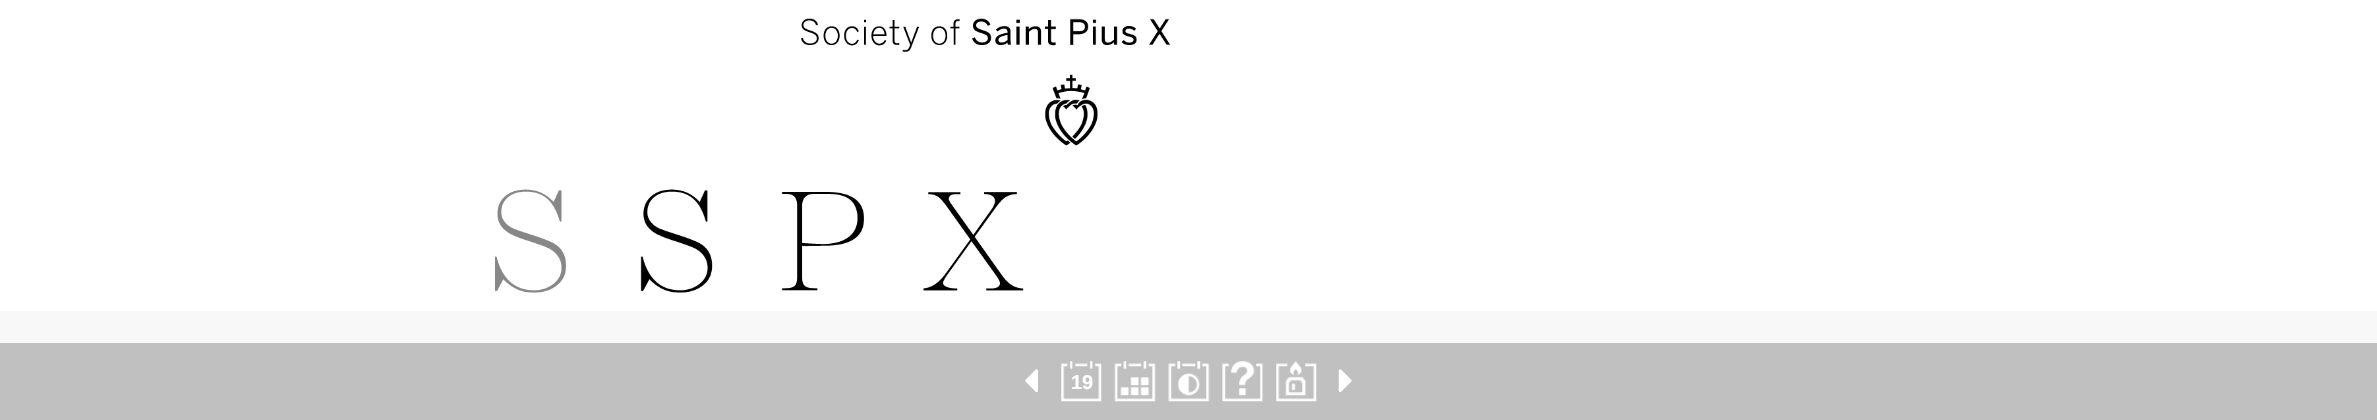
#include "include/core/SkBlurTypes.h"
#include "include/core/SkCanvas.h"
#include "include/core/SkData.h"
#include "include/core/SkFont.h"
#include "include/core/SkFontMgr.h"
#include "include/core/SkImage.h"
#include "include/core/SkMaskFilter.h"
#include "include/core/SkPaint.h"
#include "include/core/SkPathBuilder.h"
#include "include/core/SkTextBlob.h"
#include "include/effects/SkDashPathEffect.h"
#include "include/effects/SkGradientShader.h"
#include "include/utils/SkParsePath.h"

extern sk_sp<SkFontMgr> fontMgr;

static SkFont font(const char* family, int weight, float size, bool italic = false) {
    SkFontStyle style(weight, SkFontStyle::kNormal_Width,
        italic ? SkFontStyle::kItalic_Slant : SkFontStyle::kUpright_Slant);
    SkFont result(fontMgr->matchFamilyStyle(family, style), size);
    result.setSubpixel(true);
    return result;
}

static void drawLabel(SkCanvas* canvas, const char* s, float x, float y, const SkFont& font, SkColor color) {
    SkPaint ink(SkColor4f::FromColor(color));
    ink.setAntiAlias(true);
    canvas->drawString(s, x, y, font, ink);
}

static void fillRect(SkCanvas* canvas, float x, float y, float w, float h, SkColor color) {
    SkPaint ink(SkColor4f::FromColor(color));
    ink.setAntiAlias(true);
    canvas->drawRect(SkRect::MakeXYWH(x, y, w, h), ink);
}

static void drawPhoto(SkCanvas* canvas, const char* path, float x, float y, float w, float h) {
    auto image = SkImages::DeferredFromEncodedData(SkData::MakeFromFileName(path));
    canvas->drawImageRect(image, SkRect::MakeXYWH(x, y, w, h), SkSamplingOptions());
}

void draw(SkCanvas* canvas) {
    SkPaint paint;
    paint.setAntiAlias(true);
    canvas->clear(0xFFF8F8F8);
    fillRect(canvas, 0, 0, 2377, 311, 0xFFFFFFFF);
    drawPhoto(canvas, "assets/img1.png", 495, 18, 675, 275);
    fillRect(canvas, 0, 343, 2377, 77, 0xFFC0C0C0);
    drawPhoto(canvas, "assets/img2.png", 1025, 369, 13, 24);
    drawPhoto(canvas, "assets/img3.png", 1061, 361, 41, 41);
    SkFont font1 = font("Liberation Sans", 700, 20);
    drawLabel(canvas, "19", 1071, 389, font1, 0xFFFFFFFF);
    drawPhoto(canvas, "assets/img4.png", 1114, 361, 42, 41);
    drawPhoto(canvas, "assets/img5.png", 1168, 361, 42, 41);
    drawPhoto(canvas, "assets/img6.png", 1222, 361, 41, 41);
    drawPhoto(canvas, "assets/img7.png", 1276, 361, 41, 41);
    drawPhoto(canvas, "assets/img8.png", 1338, 369, 14, 24);
}
